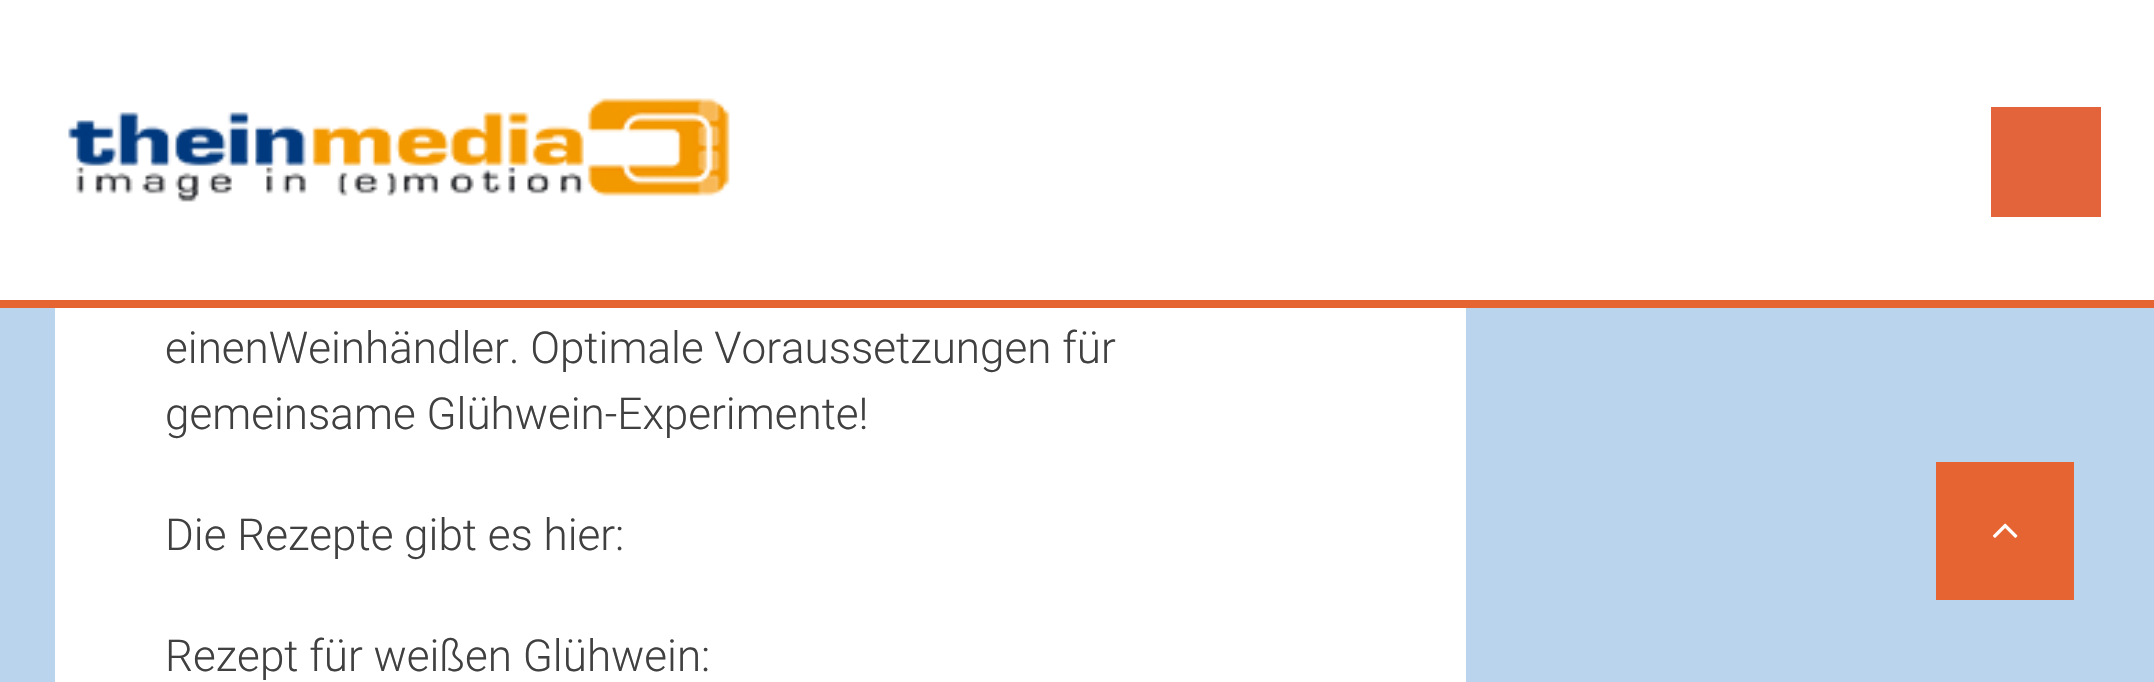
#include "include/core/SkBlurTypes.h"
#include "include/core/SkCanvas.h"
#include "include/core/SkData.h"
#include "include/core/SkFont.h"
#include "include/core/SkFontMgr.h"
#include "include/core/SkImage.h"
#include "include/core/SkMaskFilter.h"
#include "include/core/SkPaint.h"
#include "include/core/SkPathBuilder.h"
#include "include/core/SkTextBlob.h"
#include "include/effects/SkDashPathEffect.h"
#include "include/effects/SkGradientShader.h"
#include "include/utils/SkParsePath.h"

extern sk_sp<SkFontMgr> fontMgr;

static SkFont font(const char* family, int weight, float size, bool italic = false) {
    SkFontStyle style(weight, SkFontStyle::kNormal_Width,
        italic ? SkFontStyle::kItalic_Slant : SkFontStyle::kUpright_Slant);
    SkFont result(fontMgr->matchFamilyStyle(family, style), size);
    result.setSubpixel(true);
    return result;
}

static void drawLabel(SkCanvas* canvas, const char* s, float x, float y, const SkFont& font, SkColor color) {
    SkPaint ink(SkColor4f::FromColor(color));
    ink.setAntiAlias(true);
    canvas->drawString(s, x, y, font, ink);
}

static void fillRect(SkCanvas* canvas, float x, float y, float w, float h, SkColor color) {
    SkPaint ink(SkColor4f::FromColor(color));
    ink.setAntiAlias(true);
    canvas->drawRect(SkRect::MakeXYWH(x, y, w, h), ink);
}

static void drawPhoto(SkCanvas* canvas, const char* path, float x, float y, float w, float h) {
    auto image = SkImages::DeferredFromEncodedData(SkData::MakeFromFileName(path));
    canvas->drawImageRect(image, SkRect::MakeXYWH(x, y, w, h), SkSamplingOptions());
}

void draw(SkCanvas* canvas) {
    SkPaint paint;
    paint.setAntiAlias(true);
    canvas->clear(0xFFBAD4ED);
    fillRect(canvas, 0, 0, 2154, 300, 0xFFFFFFFF);
    fillRect(canvas, 0, 300, 2154, 8, 0xFFE66432);
    drawPhoto(canvas, "assets/img1.png", 68, 98, 662, 104);
    fillRect(canvas, 1991, 107, 110, 110, 0xFFE3633B);
    fillRect(canvas, 55, 308, 1411, 374, 0xFFFFFFFF);
    SkFont font1 = font("Roboto", 300, 44);
    drawLabel(canvas, "einenWeinhändler. Optimale Voraussetzungen für", 165, 363, font1, 0xFF404040);
    drawLabel(canvas, "gemeinsame Glühwein-Experimente!", 165, 429, font1, 0xFF404040);
    drawLabel(canvas, "Die Rezepte gibt es hier:", 165, 550, font1, 0xFF404040);
    drawLabel(canvas, "Rezept für weißen Glühwein:", 165, 671, font1, 0xFF404040);
    fillRect(canvas, 1936, 462, 138, 138, 0xFFE66432);
    drawPhoto(canvas, "assets/img2.png", 1992, 523, 26, 15);
}
